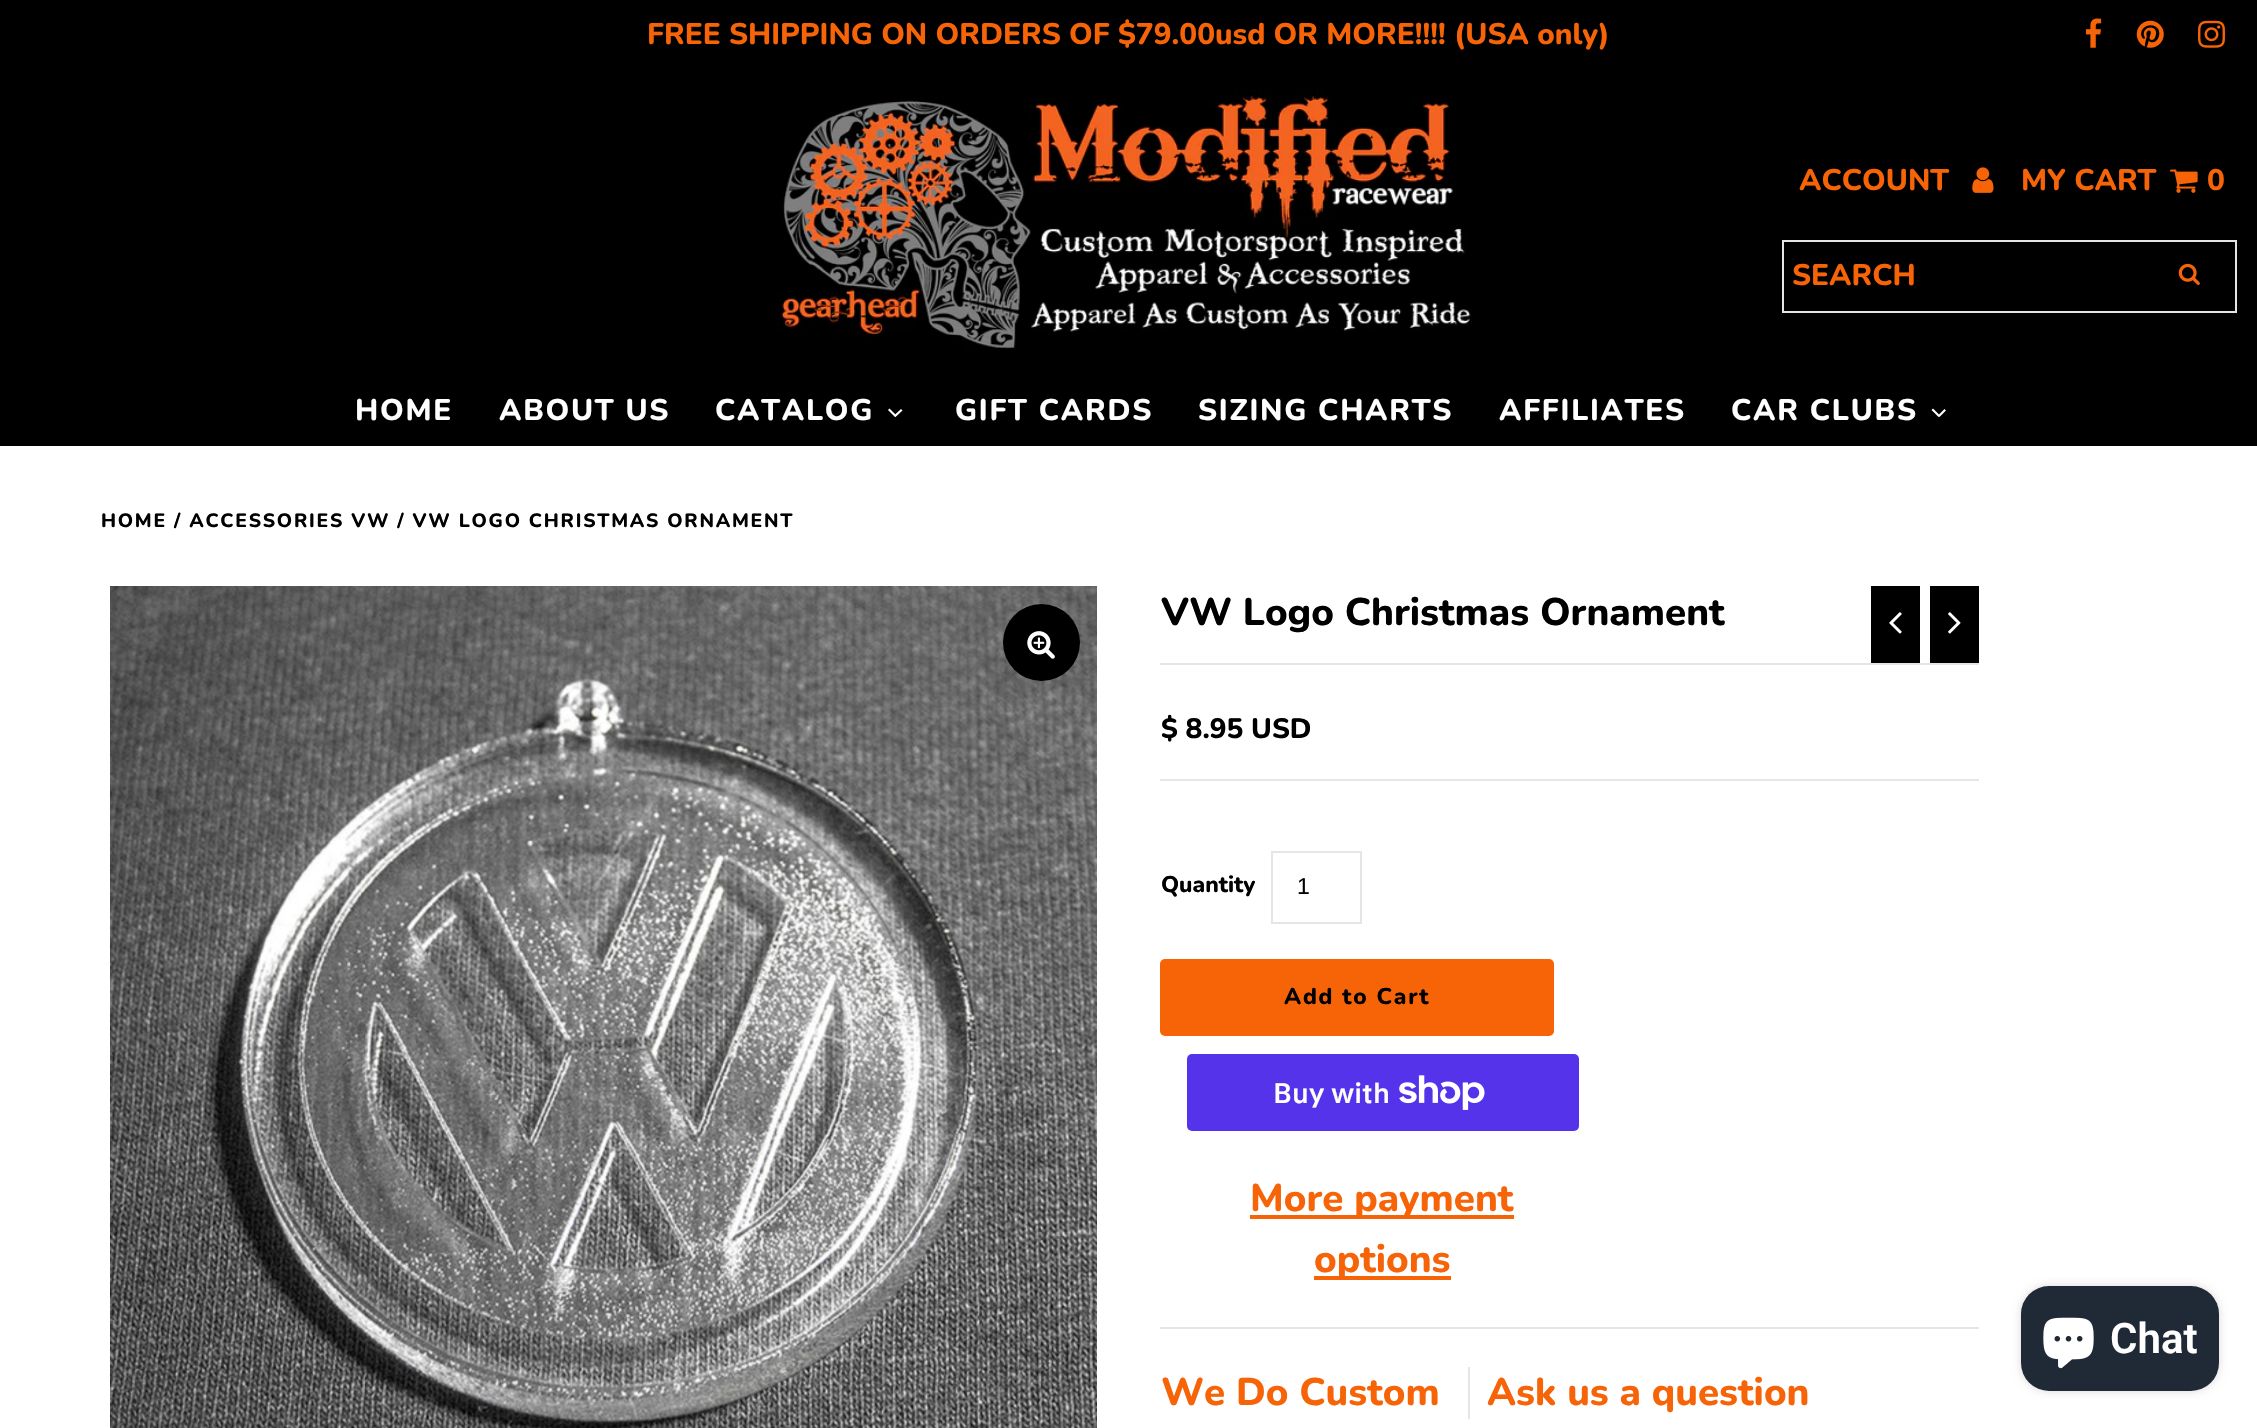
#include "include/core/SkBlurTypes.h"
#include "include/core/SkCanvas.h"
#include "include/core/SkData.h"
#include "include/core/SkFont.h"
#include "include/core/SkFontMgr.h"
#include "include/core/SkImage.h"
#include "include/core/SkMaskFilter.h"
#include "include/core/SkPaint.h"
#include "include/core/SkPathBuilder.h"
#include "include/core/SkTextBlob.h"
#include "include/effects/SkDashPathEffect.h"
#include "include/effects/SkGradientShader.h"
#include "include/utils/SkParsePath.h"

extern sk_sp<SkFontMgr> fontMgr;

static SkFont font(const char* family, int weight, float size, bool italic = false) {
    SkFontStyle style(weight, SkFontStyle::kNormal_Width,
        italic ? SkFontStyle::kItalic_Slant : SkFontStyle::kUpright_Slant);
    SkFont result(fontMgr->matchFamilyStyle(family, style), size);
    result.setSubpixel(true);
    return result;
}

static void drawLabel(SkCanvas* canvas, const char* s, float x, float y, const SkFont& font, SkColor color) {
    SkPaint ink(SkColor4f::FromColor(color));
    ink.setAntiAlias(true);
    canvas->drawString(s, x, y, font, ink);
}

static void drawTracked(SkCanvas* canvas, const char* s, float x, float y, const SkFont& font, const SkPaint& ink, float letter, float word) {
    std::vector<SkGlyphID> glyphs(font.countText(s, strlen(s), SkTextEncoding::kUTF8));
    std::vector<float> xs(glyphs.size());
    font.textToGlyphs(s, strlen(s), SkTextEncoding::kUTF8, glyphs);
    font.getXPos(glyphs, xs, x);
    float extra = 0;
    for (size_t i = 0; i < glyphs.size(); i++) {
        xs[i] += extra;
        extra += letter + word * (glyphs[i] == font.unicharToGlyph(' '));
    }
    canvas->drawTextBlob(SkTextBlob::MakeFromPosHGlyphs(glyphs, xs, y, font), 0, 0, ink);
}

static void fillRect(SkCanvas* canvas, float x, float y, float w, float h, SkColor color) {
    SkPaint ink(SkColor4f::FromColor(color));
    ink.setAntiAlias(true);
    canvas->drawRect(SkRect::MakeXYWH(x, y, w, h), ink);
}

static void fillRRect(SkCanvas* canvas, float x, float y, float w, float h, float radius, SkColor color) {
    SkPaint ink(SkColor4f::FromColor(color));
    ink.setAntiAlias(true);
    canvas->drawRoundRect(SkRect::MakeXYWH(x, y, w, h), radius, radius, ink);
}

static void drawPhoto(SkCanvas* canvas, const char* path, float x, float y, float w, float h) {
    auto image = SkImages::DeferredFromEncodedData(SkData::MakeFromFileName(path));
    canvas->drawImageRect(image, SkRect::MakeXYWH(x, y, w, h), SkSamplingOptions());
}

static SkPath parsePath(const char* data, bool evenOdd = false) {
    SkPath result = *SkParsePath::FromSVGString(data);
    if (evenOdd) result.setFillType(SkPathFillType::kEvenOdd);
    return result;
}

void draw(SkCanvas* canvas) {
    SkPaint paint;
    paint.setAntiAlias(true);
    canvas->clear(0xFFFFFFFF);
    fillRect(canvas, 0, 0, 2257, 446, 0xFF000000);
    SkFont font1 = font("Nunito", 800, 29.75f);
    drawLabel(canvas, "FREE SHIPPING ON ORDERS OF $79.00usd OR MORE!!!! (USA only)", 647, 44, font1, 0xFFF76307);
    drawPhoto(canvas, "assets/img1.png", 2085, 18, 17, 30);
    drawPhoto(canvas, "assets/img2.png", 2136, 20, 28, 28);
    drawPhoto(canvas, "assets/img3.png", 2198, 20, 27, 28);
    drawPhoto(canvas, "assets/img4.png", 777, 89, 694, 261);
    drawLabel(canvas, "ACCOUNT", 1799, 190, font1, 0xFFF76307);
    drawPhoto(canvas, "assets/img5.png", 1972, 167, 22, 26);
    drawLabel(canvas, "MY CART", 2021, 190, font1, 0xFFF76307);
    drawPhoto(canvas, "assets/img6.png", 2170, 169, 28, 24);
    drawLabel(canvas, "0", 2207, 190, font1, 0xFFF76307);
    paint.setStroke(true);
    paint.setStrokeWidth(2);
    paint.setColor(0xFFE5E5E5);
    canvas->drawRect(SkRect::MakeXYWH(1783, 241, 453, 71), paint);
    drawLabel(canvas, "SEARCH", 1792, 285, font1, 0xFFF76307);
    drawPhoto(canvas, "assets/img7.png", 2178, 263, 22, 22);
    paint.setStroke(false);
    paint.setColor(0xFFFFFFFF);
    drawTracked(canvas, "HOME", 355, 420, font1, paint, 1.75f, 0);
    drawTracked(canvas, "ABOUT US", 499, 420, font1, paint, 1.75f, 0);
    drawTracked(canvas, "CATALOG", 715, 420, font1, paint, 1.75f, 0);
    canvas->drawPath(parsePath("M901 409L902.5 410.5L895.5 417L894 415.5Z"), paint);
    canvas->drawPath(parsePath("M889.5 408.5L896.5 415.5L895 417L888 410Z"), paint);
    drawTracked(canvas, "GIFT CARDS", 955, 420, font1, paint, 1.75f, 0);
    drawTracked(canvas, "SIZING CHARTS", 1198, 420, font1, paint, 1.75f, 0);
    drawTracked(canvas, "AFFILIATES", 1499, 420, font1, paint, 1.75f, 0);
    drawTracked(canvas, "CAR CLUBS", 1731, 420, font1, paint, 1.75f, 0);
    canvas->drawPath(parsePath("M1944.5 409L1946 410.5L1939.5 417L1938 415.5Z"), paint);
    canvas->drawPath(parsePath("M1933 408.5L1940 415.5L1938.5 417L1931.5 410Z"), paint);
    SkFont font2 = font("Nunito", 800, 19.25f);
    paint.setColor(0xFF000000);
    drawTracked(canvas, "HOME / ACCESSORIES VW / VW LOGO CHRISTMAS ORNAMENT", 101, 527, font2, paint, 1.75f, 0);
    drawPhoto(canvas, "assets/img8.png", 110, 586, 987, 842);
    canvas->drawCircle(1041.5f, 642.5f, 38.5f, paint);
    drawPhoto(canvas, "assets/img9.png", 1027, 631, 28, 28);
    SkFont font3 = font("Nunito", 800, 38.5f);
    drawLabel(canvas, "VW Logo Christmas Ornament", 1161, 625, font3, 0xFF000000);
    fillRect(canvas, 1871, 586, 49, 77, 0xFF000000);
    drawPhoto(canvas, "assets/img10.png", 1889, 612, 13, 22);
    fillRect(canvas, 1930, 586, 49, 77, 0xFF000000);
    drawPhoto(canvas, "assets/img11.png", 1948, 612, 13, 22);
    fillRect(canvas, 1160, 663, 819, 2, 0xFFE5E5E5);
    fillRect(canvas, 1160, 1327, 819, 2, 0xFFE5E5E5);
    fillRect(canvas, 1160, 779, 819, 2, 0xFFE5E5E5);
    SkFont font4 = font("Nunito", 800, 28);
    drawLabel(canvas, "$ 8.95 USD", 1161, 738, font4, 0xFF000000);
    SkFont font5 = font("Nunito", 800, 22.75f);
    drawLabel(canvas, "Quantity", 1161, 892, font5, 0xFF000000);
    paint.setStroke(true);
    paint.setColor(0xFFE5E5E5);
    canvas->drawRect(SkRect::MakeXYWH(1272, 852, 89, 71), paint);
    SkFont font6 = font("Liberation Sans", 400, 23);
    drawLabel(canvas, "1", 1297, 894, font6, 0xFF000000);
    fillRRect(canvas, 1160, 959, 394, 77, 5, 0xFFF76307);
    paint.setStroke(false);
    paint.setColor(0xFF000000);
    drawTracked(canvas, "Add to Cart", 1284, 1004, font5, paint, 1.75f, 0);
    fillRRect(canvas, 1187, 1054, 392, 77, 5, 0xFF5433EB);
    SkFont font7 = font("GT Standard", 600, 28);
    drawLabel(canvas, "Buy with", 1273, 1103, font7, 0xFFFFFFFF);
    drawPhoto(canvas, "assets/img12.png", 1399, 1075, 86, 35);
    fillRect(canvas, 1250, 1215, 264, 4, 0xFFF76307);
    drawLabel(canvas, "More payment", 1250, 1211, font3, 0xFFF76307);
    fillRect(canvas, 1314, 1276, 137, 4, 0xFFF76307);
    drawLabel(canvas, "options", 1314, 1272, font3, 0xFFF76307);
    drawLabel(canvas, "We Do Custom", 1161, 1405, font3, 0xFFF76307);
    fillRect(canvas, 1468, 1367, 2, 52, 0xFFE5E5E5);
    drawLabel(canvas, "Ask us a question", 1487, 1405, font3, 0xFFF76307);
    paint.setColor(0x26000000);
    paint.setMaskFilter(SkMaskFilter::MakeBlur(kNormal_SkBlurStyle, 4.5f));
    canvas->drawRoundRect(SkRect::MakeXYWH(2021, 1286, 198, 105), 28, 28, paint);
    paint.setMaskFilter(nullptr);
    fillRRect(canvas, 2021, 1286, 198, 105, 28, 0xFF202A36);
    drawPhoto(canvas, "assets/img13.png", 2043, 1317, 51, 52);
    SkFont font8 = font("Roboto", 600, 42);
    drawLabel(canvas, "Chat", 2110, 1353, font8, 0xFFFFFFFF);
}
